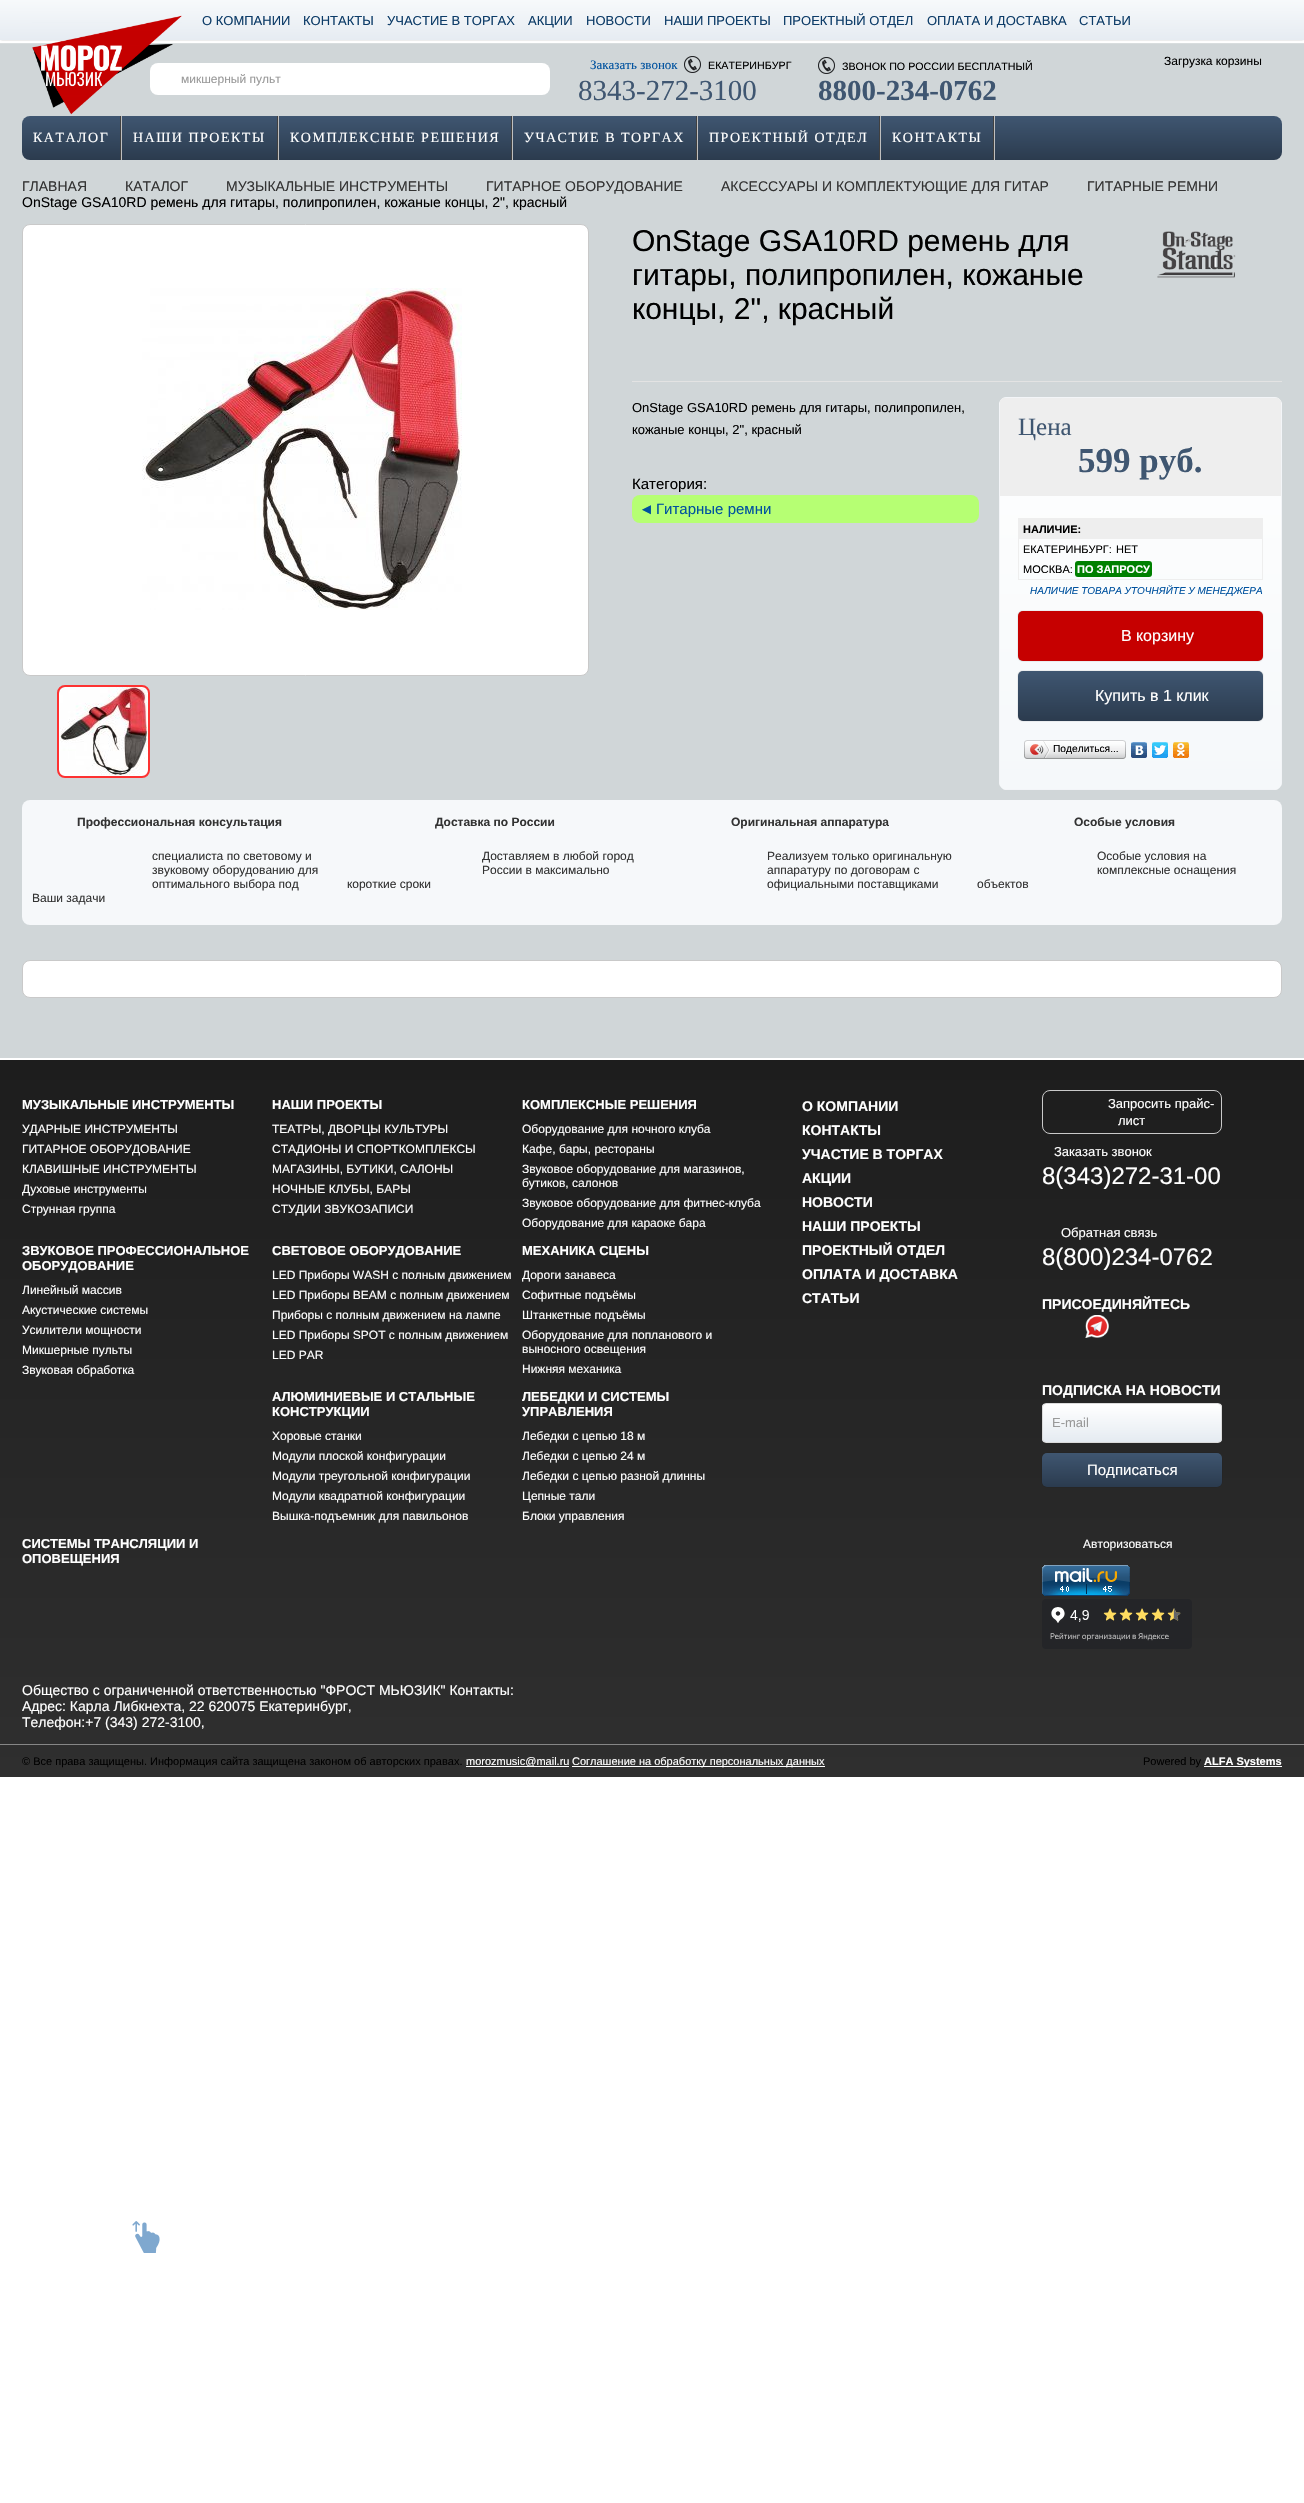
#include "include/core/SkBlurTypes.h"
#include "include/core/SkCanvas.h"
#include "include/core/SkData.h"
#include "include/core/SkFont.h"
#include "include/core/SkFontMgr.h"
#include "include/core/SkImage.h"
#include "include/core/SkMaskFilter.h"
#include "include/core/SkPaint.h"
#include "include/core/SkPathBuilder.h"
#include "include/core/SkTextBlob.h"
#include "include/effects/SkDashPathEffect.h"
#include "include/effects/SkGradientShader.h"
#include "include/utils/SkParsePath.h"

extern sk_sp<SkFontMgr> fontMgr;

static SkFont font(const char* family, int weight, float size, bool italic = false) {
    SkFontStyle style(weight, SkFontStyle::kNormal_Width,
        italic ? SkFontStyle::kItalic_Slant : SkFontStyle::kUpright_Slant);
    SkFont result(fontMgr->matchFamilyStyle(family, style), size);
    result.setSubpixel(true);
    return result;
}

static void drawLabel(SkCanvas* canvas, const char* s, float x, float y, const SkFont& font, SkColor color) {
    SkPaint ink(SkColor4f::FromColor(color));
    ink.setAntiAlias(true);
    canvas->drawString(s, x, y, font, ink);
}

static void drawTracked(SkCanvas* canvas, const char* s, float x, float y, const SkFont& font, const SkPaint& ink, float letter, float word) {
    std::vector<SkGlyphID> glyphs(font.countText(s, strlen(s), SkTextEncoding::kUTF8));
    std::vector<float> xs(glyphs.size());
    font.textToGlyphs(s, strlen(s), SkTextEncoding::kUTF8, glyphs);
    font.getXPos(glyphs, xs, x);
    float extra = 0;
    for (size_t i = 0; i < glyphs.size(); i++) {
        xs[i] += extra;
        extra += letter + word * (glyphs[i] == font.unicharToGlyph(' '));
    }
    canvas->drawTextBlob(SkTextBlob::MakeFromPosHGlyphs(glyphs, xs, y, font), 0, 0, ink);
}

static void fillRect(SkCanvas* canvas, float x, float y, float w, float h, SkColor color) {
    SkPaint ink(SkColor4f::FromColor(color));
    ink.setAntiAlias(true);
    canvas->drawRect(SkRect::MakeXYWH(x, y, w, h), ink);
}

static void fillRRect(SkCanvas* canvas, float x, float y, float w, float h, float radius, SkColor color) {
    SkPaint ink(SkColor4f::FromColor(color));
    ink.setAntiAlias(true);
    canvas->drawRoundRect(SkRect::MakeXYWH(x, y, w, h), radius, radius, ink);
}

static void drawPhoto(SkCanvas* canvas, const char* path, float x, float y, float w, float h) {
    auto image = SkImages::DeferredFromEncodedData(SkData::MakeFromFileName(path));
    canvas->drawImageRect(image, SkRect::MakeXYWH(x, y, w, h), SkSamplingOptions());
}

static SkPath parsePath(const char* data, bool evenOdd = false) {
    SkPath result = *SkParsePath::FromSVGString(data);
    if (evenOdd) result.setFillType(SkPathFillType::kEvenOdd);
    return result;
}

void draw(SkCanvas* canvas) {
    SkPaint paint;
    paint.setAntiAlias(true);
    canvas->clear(0xFFFFFFFF);
    fillRect(canvas, 0, 42, 1304, 1016, 0xFFD0D6D8);
    paint.setColor(0xFFFFFFFF);
    paint.setMaskFilter(SkMaskFilter::MakeBlur(kNormal_SkBlurStyle, 0.5f));
    canvas->drawRect(SkRect::MakeXYWH(-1, 1, 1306, 42), paint);
    paint.setMaskFilter(nullptr);
    paint.setColor(0xFF000000);
    paint.setMaskFilter(SkMaskFilter::MakeBlur(kNormal_SkBlurStyle, 1));
    canvas->drawRect(SkRect::MakeXYWH(1, 1, 1302, 38), paint);
    paint.setMaskFilter(nullptr);
    {
        const SkColor colors[] = {0xFFF7F9FB, 0xFFE6ECF2};
        const float stops[] = {0, 1};
        const SkPoint ends[] = {{652, 0}, {652, 40}};
        paint.setShader(SkGradientShader::MakeLinear(ends, colors, stops, 2, SkTileMode::kClamp));
        paint.setAlpha(255);
    }
    canvas->drawRect(SkRect::MakeXYWH(0, 0, 1304, 40), paint);
    fillRRect(canvas, 150, 63, 400, 32, 8, 0xFFFFFFFF);
    SkFont font1 = font("Liberation Sans", 400, 12);
    drawLabel(canvas, "микшерный пульт", 181, 83, font1, 0xFF999999);
    drawPhoto(canvas, "assets/img1.png", 32, 15, 150, 100);
    SkFont font2 = font("Liberation Sans", 400, 13);
    drawLabel(canvas, "О КОМПАНИИ", 202, 25, font2, 0xFF0D3C68);
    drawLabel(canvas, "КОНТАКТЫ", 303, 25, font2, 0xFF0D3C68);
    drawLabel(canvas, "УЧАСТИЕ В ТОРГАХ", 387, 25, font2, 0xFF0D3C68);
    drawLabel(canvas, "АКЦИИ", 528, 25, font2, 0xFF0D3C68);
    drawLabel(canvas, "НОВОСТИ", 586, 25, font2, 0xFF0D3C68);
    drawLabel(canvas, "НАШИ ПРОЕКТЫ", 664, 25, font2, 0xFF0D3C68);
    drawLabel(canvas, "ПРОЕКТНЫЙ ОТДЕЛ", 783, 25, font2, 0xFF0D3C68);
    drawLabel(canvas, "ОПЛАТА И ДОСТАВКА", 927, 25, font2, 0xFF0D3C68);
    drawLabel(canvas, "СТАТЬИ", 1079, 25, font2, 0xFF0D3C68);
    SkFont font3 = font("Liberation Serif", 400, 13);
    drawLabel(canvas, "Заказать звонок", 590, 69, font3, 0xFF00529F);
    drawPhoto(canvas, "assets/img2.png", 684, 56, 17, 17);
    SkFont font4 = font("Liberation Sans", 400, 10.7f);
    drawLabel(canvas, "ЕКАТЕРИНБУРГ", 708, 69, font4, 0xFF000000);
    SkFont font5 = font("Liberation Serif", 400, 29);
    drawLabel(canvas, "8343-272-3100", 578, 100, font5, 0xFF3F5671);
    drawPhoto(canvas, "assets/img2.png", 818, 57, 17, 17);
    drawLabel(canvas, "ЗВОНОК ПО РОССИИ БЕСПЛАТНЫЙ", 842, 70, font4, 0xFF000000);
    SkFont font6 = font("Liberation Serif", 700, 29);
    drawLabel(canvas, "8800-234-0762", 818, 100, font6, 0xFF3F5671);
    drawLabel(canvas, "Загрузка корзины", 1164, 65, font1, 0xFF000000);
    {
        const SkColor colors[] = {0xFF3F5671, 0xFF2B3B4E};
        const float stops[] = {0, 1};
        const SkPoint ends[] = {{652, 116}, {652, 160}};
        paint.setShader(SkGradientShader::MakeLinear(ends, colors, stops, 2, SkTileMode::kClamp));
        paint.setAlpha(255);
    }
    canvas->drawRoundRect(SkRect::MakeXYWH(22, 116, 1260, 44), 8, 8, paint);
    SkFont font7 = font("Liberation Serif", 400, 14);
    paint.setShader(nullptr);
    paint.setColor(0xFFFFFFFF);
    drawTracked(canvas, "КАТАЛОГ", 33, 142, font7, paint, 1.5f, 0);
    {
        const SkColor colors[] = {0xFF000000, 0xFFFFFFFF};
        const float stops[] = {0, 1};
        const SkPoint ends[] = {{120, 138}, {122, 138}};
        paint.setShader(SkGradientShader::MakeLinear(ends, colors, stops, 2, SkTileMode::kClamp));
        paint.setAlpha(255);
    }
    canvas->drawRect(SkRect::MakeXYWH(120, 116, 2, 44), paint);
    paint.setShader(nullptr);
    paint.setColor(0xFFFFFFFF);
    drawTracked(canvas, "НАШИ ПРОЕКТЫ", 133, 142, font7, paint, 1.5f, 0);
    {
        const SkColor colors[] = {0xFF000000, 0xFFFFFFFF};
        const float stops[] = {0, 1};
        const SkPoint ends[] = {{277, 138}, {279, 138}};
        paint.setShader(SkGradientShader::MakeLinear(ends, colors, stops, 2, SkTileMode::kClamp));
        paint.setAlpha(255);
    }
    canvas->drawRect(SkRect::MakeXYWH(277, 116, 2, 44), paint);
    paint.setShader(nullptr);
    paint.setColor(0xFFFFFFFF);
    drawTracked(canvas, "КОМПЛЕКСНЫЕ РЕШЕНИЯ", 290, 142, font7, paint, 1.5f, 0);
    {
        const SkColor colors[] = {0xFF000000, 0xFFFFFFFF};
        const float stops[] = {0, 1};
        const SkPoint ends[] = {{511, 138}, {513, 138}};
        paint.setShader(SkGradientShader::MakeLinear(ends, colors, stops, 2, SkTileMode::kClamp));
        paint.setAlpha(255);
    }
    canvas->drawRect(SkRect::MakeXYWH(511, 116, 2, 44), paint);
    paint.setShader(nullptr);
    paint.setColor(0xFFFFFFFF);
    drawTracked(canvas, "УЧАСТИЕ В ТОРГАХ", 524, 142, font7, paint, 1.5f, 0);
    {
        const SkColor colors[] = {0xFF000000, 0xFFFFFFFF};
        const float stops[] = {0, 1};
        const SkPoint ends[] = {{696, 138}, {698, 138}};
        paint.setShader(SkGradientShader::MakeLinear(ends, colors, stops, 2, SkTileMode::kClamp));
        paint.setAlpha(255);
    }
    canvas->drawRect(SkRect::MakeXYWH(696, 116, 2, 44), paint);
    paint.setShader(nullptr);
    paint.setColor(0xFFFFFFFF);
    drawTracked(canvas, "ПРОЕКТНЫЙ ОТДЕЛ", 709, 142, font7, paint, 1.5f, 0);
    {
        const SkColor colors[] = {0xFF000000, 0xFFFFFFFF};
        const float stops[] = {0, 1};
        const SkPoint ends[] = {{879, 138}, {881, 138}};
        paint.setShader(SkGradientShader::MakeLinear(ends, colors, stops, 2, SkTileMode::kClamp));
        paint.setAlpha(255);
    }
    canvas->drawRect(SkRect::MakeXYWH(879, 116, 2, 44), paint);
    paint.setShader(nullptr);
    paint.setColor(0xFFFFFFFF);
    drawTracked(canvas, "КОНТАКТЫ", 892, 142, font7, paint, 1.5f, 0);
    {
        const SkColor colors[] = {0xFF000000, 0xFFFFFFFF};
        const float stops[] = {0, 1};
        const SkPoint ends[] = {{993, 138}, {995, 138}};
        paint.setShader(SkGradientShader::MakeLinear(ends, colors, stops, 2, SkTileMode::kClamp));
        paint.setAlpha(255);
    }
    canvas->drawRect(SkRect::MakeXYWH(993, 116, 2, 44), paint);
    SkFont font8 = font("Liberation Sans", 400, 14);
    drawLabel(canvas, "ГЛАВНАЯ", 22, 191, font8, 0xFF333333);
    drawLabel(canvas, "КАТАЛОГ", 125, 191, font8, 0xFF333333);
    drawLabel(canvas, "МУЗЫКАЛЬНЫЕ ИНСТРУМЕНТЫ", 226, 191, font8, 0xFF333333);
    drawLabel(canvas, "ГИТАРНОЕ ОБОРУДОВАНИЕ", 486, 191, font8, 0xFF333333);
    drawLabel(canvas, "АКСЕССУАРЫ И КОМПЛЕКТУЮЩИЕ ДЛЯ ГИТАР", 721, 191, font8, 0xFF333333);
    drawLabel(canvas, "ГИТАРНЫЕ РЕМНИ", 1087, 191, font8, 0xFF333333);
    drawLabel(canvas, "OnStage GSA10RD ремень для гитары, полипропилен, кожаные концы, 2\", красный", 22, 207, font8, 0xFF000000);
    paint.setShader(nullptr);
    paint.setColor(0xFFFFFFFF);
    canvas->drawRoundRect(SkRect::MakeXYWH(22.5f, 224.5f, 566, 451), 7.5f, 7.5f, paint);
    paint.setStroke(true);
    paint.setStrokeWidth(1);
    paint.setColor(0xFFC9C9C9);
    canvas->drawRoundRect(SkRect::MakeXYWH(22.5f, 224.5f, 566, 451), 7.5f, 7.5f, paint);
    drawPhoto(canvas, "assets/img3.png", 142, 288, 320, 322);
    paint.setStroke(false);
    paint.setColor(0xFFFFFFFF);
    canvas->drawRoundRect(SkRect::MakeXYWH(58.5f, 686.5f, 91, 91), 7.5f, 7.5f, paint);
    paint.setStroke(true);
    paint.setColor(0xFFD1D1D1);
    canvas->drawRoundRect(SkRect::MakeXYWH(58.5f, 686.5f, 91, 91), 7.5f, 7.5f, paint);
    drawPhoto(canvas, "assets/img4.png", 60, 687, 88, 88);
    paint.setStrokeWidth(2);
    paint.setColor(0xFFFD3232);
    canvas->drawRoundRect(SkRect::MakeXYWH(58, 686, 91, 91), 7, 7, paint);
    fillRect(canvas, 632, 381, 650, 1, 0xFFE3E3E3);
    SkFont font9 = font("Liberation Sans", 400, 30);
    drawLabel(canvas, "OnStage GSA10RD ремень для", 632, 251, font9, 0xFF000000);
    drawLabel(canvas, "гитары, полипропилен, кожаные", 632, 285, font9, 0xFF000000);
    drawLabel(canvas, "концы, 2\", красный", 632, 319, font9, 0xFF000000);
    drawPhoto(canvas, "assets/img5.png", 1157, 231, 79, 47);
    drawLabel(canvas, "OnStage GSA10RD ремень для гитары, полипропилен,", 632, 412, font2, 0xFF000000);
    drawLabel(canvas, "кожаные концы, 2\", красный", 632, 434, font2, 0xFF000000);
    SkFont font10 = font("Liberation Sans", 400, 15);
    drawLabel(canvas, "Категория:", 632, 489, font10, 0xFF000000);
    fillRRect(canvas, 632, 495, 347, 28, 8, 0xFFB6FF73);
    drawLabel(canvas, "◄", 639, 514, font10, 0xFF00529F);
    drawLabel(canvas, "Гитарные ремни", 656, 514, font10, 0xFF00529F);
    canvas->save();
    canvas->clipPath(parsePath("M1007 397H1274C1278.5 397 1282 400.5 1282 405V782C1282 786.5 1278.5 790 1274 790H1007C1002.5 790 999 786.5 999 782V405C999 400.5 1002.5 397 1007 397Z"), true);
    paint.setStroke(false);
    {
        const SkColor colors[] = {0xFFFFFFFF, 0xFFF5F8FA};
        const float stops[] = {0, 1};
        const SkPoint ends[] = {{1141, 7}, {1141, 398}};
        paint.setShader(SkGradientShader::MakeLinear(ends, colors, stops, 2, SkTileMode::kClamp));
        paint.setAlpha(255);
    }
    canvas->drawRect(SkRect::MakeXYWH(999, 397, 283, 1), paint);
    {
        const SkColor colors[] = {0xFFFFFFFF, 0xFFF5F8FA};
        const float stops[] = {0, 1};
        const SkPoint ends[] = {{1141, 398}, {1141, 789}};
        paint.setShader(SkGradientShader::MakeLinear(ends, colors, stops, 2, SkTileMode::kClamp));
        paint.setAlpha(255);
    }
    canvas->drawRect(SkRect::MakeXYWH(999, 398, 283, 391), paint);
    {
        const SkColor colors[] = {0xFFFFFFFF, 0xFFF5F8FA};
        const float stops[] = {0, 1};
        const SkPoint ends[] = {{1141, 789}, {1141, 1180}};
        paint.setShader(SkGradientShader::MakeLinear(ends, colors, stops, 2, SkTileMode::kClamp));
        paint.setAlpha(255);
    }
    canvas->drawRect(SkRect::MakeXYWH(999, 789, 283, 1), paint);
    canvas->restore();
    paint.setShader(nullptr);
    paint.setColor(0xFFF3F5F8);
    canvas->drawPath(parsePath("M999 405V782L1000 786V401ZM1007 397L1003 398H1278L1274 397ZM1282 405L1281 401V786L1282 782ZM1274 790L1278 789H1003L1007 790Z", true), paint);
    canvas->save();
    canvas->clipPath(parsePath("M1007 397H1274C1278.5 397 1282 400.5 1282 405V782C1282 786.5 1278.5 790 1274 790H1007C1002.5 790 999 786.5 999 782V405C999 400.5 1002.5 397 1007 397Z"), true);
    fillRect(canvas, 1000, 398, 281, 98, 0xFFEEEEEE);
    canvas->restore();
    SkFont font11 = font("Liberation Serif", 400, 25);
    drawLabel(canvas, "Цена", 1018, 435, font11, 0xFF3F5671);
    SkFont font12 = font("Liberation Serif", 700, 35);
    drawLabel(canvas, "599 руб.", 1078, 472, font12, 0xFF3F5671);
    fillRect(canvas, 1018, 518, 245, 1, 0xFFEEEEEE);
    fillRect(canvas, 1262, 518, 1, 62, 0xFFEEEEEE);
    fillRect(canvas, 1018, 579, 245, 1, 0xFFEEEEEE);
    fillRect(canvas, 1018, 518, 1, 62, 0xFFEEEEEE);
    fillRect(canvas, 1019, 519, 243, 20, 0xFFEEEEEE);
    SkFont font13 = font("Liberation Sans", 700, 11);
    drawLabel(canvas, "НАЛИЧИЕ:", 1023, 533, font13, 0xFF000000);
    SkFont font14 = font("Liberation Sans", 400, 11);
    drawLabel(canvas, "ЕКАТЕРИНБУРГ:", 1023, 553, font14, 0xFF000000);
    drawLabel(canvas, "НЕТ", 1116, 553, font14, 0xFF000000);
    drawLabel(canvas, "МОСКВА:", 1023, 573, font14, 0xFF000000);
    fillRRect(canvas, 1075, 561, 77, 16, 3, 0xFF008000);
    drawLabel(canvas, "ПО ЗАПРОСУ", 1077, 573, font13, 0xFFFFFFFF);
    SkFont font15 = font("Liberation Sans", 400, 10, true);
    drawLabel(canvas, "НАЛИЧИЕ ТОВАРА УТОЧНЯЙТЕ У МЕНЕДЖЕРА", 1030, 594, font15, 0xFF00529F);
    paint.setColor(0xFF000000);
    paint.setMaskFilter(SkMaskFilter::MakeBlur(kNormal_SkBlurStyle, 1));
    canvas->drawRoundRect(SkRect::MakeXYWH(1019, 612, 243, 48), 4, 4, paint);
    paint.setMaskFilter(nullptr);
    fillRRect(canvas, 1018, 611, 245, 50, 5, 0xFFC60000);
    SkFont font16 = font("Liberation Sans", 400, 16);
    drawLabel(canvas, "В корзину", 1121, 641, font16, 0xFFFFFFFF);
    paint.setMaskFilter(SkMaskFilter::MakeBlur(kNormal_SkBlurStyle, 1));
    canvas->drawRoundRect(SkRect::MakeXYWH(1019, 672, 243, 48), 4, 4, paint);
    paint.setMaskFilter(nullptr);
    {
        const SkColor colors[] = {0xFF3F5671, 0xFF2B3B4E};
        const float stops[] = {0, 1};
        const SkPoint ends[] = {{1141, 671}, {1141, 721}};
        paint.setShader(SkGradientShader::MakeLinear(ends, colors, stops, 2, SkTileMode::kClamp));
        paint.setAlpha(255);
    }
    canvas->drawRoundRect(SkRect::MakeXYWH(1018, 671, 245, 50), 5, 5, paint);
    drawLabel(canvas, "Купить в 1 клик", 1095, 701, font16, 0xFFFFFFFF);
    drawPhoto(canvas, "assets/img6.png", 1027, 740, 96, 19);
    drawPhoto(canvas, "assets/img7.png", 1024, 740, 3, 19);
    drawPhoto(canvas, "assets/img8.png", 1030, 741, 20, 17);
    SkFont font17 = font("Liberation Sans", 400, 10.25f);
    drawLabel(canvas, "Поделиться...", 1053, 752, font17, 0xFF000000);
    drawPhoto(canvas, "assets/img9.png", 1123, 740, 3, 19);
    drawPhoto(canvas, "assets/img10.png", 1131, 742, 16, 16);
    drawPhoto(canvas, "assets/img11.png", 1152, 742, 16, 16);
    drawPhoto(canvas, "assets/img12.png", 1173, 742, 16, 16);
    fillRRect(canvas, 22, 800, 1260, 125, 8, 0xFFF6F8FA);
    SkFont font18 = font("Liberation Sans", 700, 12);
    drawLabel(canvas, "Профессиональная консультация", 77, 826, font18, 0xFF333333);
    drawLabel(canvas, "специалиста по световому и", 152, 860, font1, 0xFF333333);
    drawLabel(canvas, "звуковому оборудованию для", 152, 874, font1, 0xFF333333);
    drawLabel(canvas, "оптимального выбора под", 152, 888, font1, 0xFF333333);
    drawLabel(canvas, "Ваши задачи", 32, 902, font1, 0xFF333333);
    drawLabel(canvas, "Доставка по России", 435, 826, font18, 0xFF333333);
    drawLabel(canvas, "Доставляем в любой город", 482, 860, font1, 0xFF333333);
    drawLabel(canvas, "России в максимально", 482, 874, font1, 0xFF333333);
    drawLabel(canvas, "короткие сроки", 347, 888, font1, 0xFF333333);
    drawLabel(canvas, "Оригинальная аппаратура", 731, 826, font18, 0xFF333333);
    drawLabel(canvas, "Реализуем только оригинальную", 767, 860, font1, 0xFF333333);
    drawLabel(canvas, "аппаратуру по договорам с", 767, 874, font1, 0xFF333333);
    drawLabel(canvas, "официальными поставщиками", 767, 888, font1, 0xFF333333);
    drawLabel(canvas, "Особые условия", 1074, 826, font18, 0xFF333333);
    drawLabel(canvas, "Особые условия на", 1097, 860, font1, 0xFF333333);
    drawLabel(canvas, "комплексные оснащения", 1097, 874, font1, 0xFF333333);
    drawLabel(canvas, "объектов", 977, 888, font1, 0xFF333333);
    paint.setShader(nullptr);
    paint.setColor(0xFFFFFFFF);
    canvas->drawRoundRect(SkRect::MakeXYWH(22.5f, 960.5f, 1259, 37), 7.5f, 7.5f, paint);
    paint.setStroke(true);
    paint.setStrokeWidth(1);
    paint.setColor(0xFFC9C9C9);
    canvas->drawRoundRect(SkRect::MakeXYWH(22.5f, 960.5f, 1259, 37), 7.5f, 7.5f, paint);
    paint.setStroke(false);
    {
        const SkColor colors[] = {0xFF1D1D1D, 0xFF2F2F2F};
        const float stops[] = {0, 1};
        const SkPoint ends[] = {{652, 1060}, {652, 1777}};
        paint.setShader(SkGradientShader::MakeLinear(ends, colors, stops, 2, SkTileMode::kClamp));
        paint.setAlpha(255);
    }
    canvas->drawRect(SkRect::MakeXYWH(0, 1060, 1304, 717), paint);
    SkFont font19 = font("Liberation Sans", 700, 13);
    drawLabel(canvas, "МУЗЫКАЛЬНЫЕ ИНСТРУМЕНТЫ", 22, 1109, font19, 0xFFFFFFFF);
    drawLabel(canvas, "УДАРНЫЕ ИНСТРУМЕНТЫ", 22, 1133, font1, 0xFFFFFFFF);
    drawLabel(canvas, "ГИТАРНОЕ ОБОРУДОВАНИЕ", 22, 1153, font1, 0xFFFFFFFF);
    drawLabel(canvas, "КЛАВИШНЫЕ ИНСТРУМЕНТЫ", 22, 1173, font1, 0xFFFFFFFF);
    drawLabel(canvas, "Духовые инструменты", 22, 1193, font1, 0xFFFFFFFF);
    drawLabel(canvas, "Струнная группа", 22, 1213, font1, 0xFFFFFFFF);
    drawLabel(canvas, "НАШИ ПРОЕКТЫ", 272, 1109, font19, 0xFFFFFFFF);
    drawLabel(canvas, "ТЕАТРЫ, ДВОРЦЫ КУЛЬТУРЫ", 272, 1133, font1, 0xFFFFFFFF);
    drawLabel(canvas, "СТАДИОНЫ И СПОРТКОМПЛЕКСЫ", 272, 1153, font1, 0xFFFFFFFF);
    drawLabel(canvas, "МАГАЗИНЫ, БУТИКИ, САЛОНЫ", 272, 1173, font1, 0xFFFFFFFF);
    drawLabel(canvas, "НОЧНЫЕ КЛУБЫ, БАРЫ", 272, 1193, font1, 0xFFFFFFFF);
    drawLabel(canvas, "СТУДИИ ЗВУКОЗАПИСИ", 272, 1213, font1, 0xFFFFFFFF);
    drawLabel(canvas, "КОМПЛЕКСНЫЕ РЕШЕНИЯ", 522, 1109, font19, 0xFFFFFFFF);
    drawLabel(canvas, "Оборудование для ночного клуба", 522, 1133, font1, 0xFFFFFFFF);
    drawLabel(canvas, "Кафе, бары, рестораны", 522, 1153, font1, 0xFFFFFFFF);
    drawLabel(canvas, "Звуковое оборудование для магазинов,", 522, 1173, font1, 0xFFFFFFFF);
    drawLabel(canvas, "бутиков, салонов", 522, 1187, font1, 0xFFFFFFFF);
    drawLabel(canvas, "Звуковое оборудование для фитнес-клуба", 522, 1207, font1, 0xFFFFFFFF);
    drawLabel(canvas, "Оборудование для караоке бара", 522, 1227, font1, 0xFFFFFFFF);
    drawLabel(canvas, "ЗВУКОВОЕ ПРОФЕССИОНАЛЬНОЕ", 22, 1255, font19, 0xFFFFFFFF);
    drawLabel(canvas, "ОБОРУДОВАНИЕ", 22, 1270, font19, 0xFFFFFFFF);
    drawLabel(canvas, "Линейный массив", 22, 1294, font1, 0xFFFFFFFF);
    drawLabel(canvas, "Акустические системы", 22, 1314, font1, 0xFFFFFFFF);
    drawLabel(canvas, "Усилители мощности", 22, 1334, font1, 0xFFFFFFFF);
    drawLabel(canvas, "Микшерные пульты", 22, 1354, font1, 0xFFFFFFFF);
    drawLabel(canvas, "Звуковая обработка", 22, 1374, font1, 0xFFFFFFFF);
    drawLabel(canvas, "СВЕТОВОЕ ОБОРУДОВАНИЕ", 272, 1255, font19, 0xFFFFFFFF);
    drawLabel(canvas, "LED Приборы WASH с полным движением", 272, 1279, font1, 0xFFFFFFFF);
    drawLabel(canvas, "LED Приборы BEAM с полным движением", 272, 1299, font1, 0xFFFFFFFF);
    drawLabel(canvas, "Приборы с полным движением на лампе", 272, 1319, font1, 0xFFFFFFFF);
    drawLabel(canvas, "LED Приборы SPOT с полным движением", 272, 1339, font1, 0xFFFFFFFF);
    drawLabel(canvas, "LED PAR", 272, 1359, font1, 0xFFFFFFFF);
    drawLabel(canvas, "МЕХАНИКА СЦЕНЫ", 522, 1255, font19, 0xFFFFFFFF);
    drawLabel(canvas, "Дороги занавеса", 522, 1279, font1, 0xFFFFFFFF);
    drawLabel(canvas, "Софитные подъёмы", 522, 1299, font1, 0xFFFFFFFF);
    drawLabel(canvas, "Штанкетные подъёмы", 522, 1319, font1, 0xFFFFFFFF);
    drawLabel(canvas, "Оборудование для попланового и", 522, 1339, font1, 0xFFFFFFFF);
    drawLabel(canvas, "выносного освещения", 522, 1353, font1, 0xFFFFFFFF);
    drawLabel(canvas, "Нижняя механика", 522, 1373, font1, 0xFFFFFFFF);
    drawLabel(canvas, "АЛЮМИНИЕВЫЕ И СТАЛЬНЫЕ", 272, 1401, font19, 0xFFFFFFFF);
    drawLabel(canvas, "КОНСТРУКЦИИ", 272, 1416, font19, 0xFFFFFFFF);
    drawLabel(canvas, "Хоровые станки", 272, 1440, font1, 0xFFFFFFFF);
    drawLabel(canvas, "Модули плоской конфигурации", 272, 1460, font1, 0xFFFFFFFF);
    drawLabel(canvas, "Модули треугольной конфигурации", 272, 1480, font1, 0xFFFFFFFF);
    drawLabel(canvas, "Модули квадратной конфигурации", 272, 1500, font1, 0xFFFFFFFF);
    drawLabel(canvas, "Вышка-подъемник для павильонов", 272, 1520, font1, 0xFFFFFFFF);
    drawLabel(canvas, "ЛЕБЕДКИ И СИСТЕМЫ", 522, 1401, font19, 0xFFFFFFFF);
    drawLabel(canvas, "УПРАВЛЕНИЯ", 522, 1416, font19, 0xFFFFFFFF);
    drawLabel(canvas, "Лебедки с цепью 18 м", 522, 1440, font1, 0xFFFFFFFF);
    drawLabel(canvas, "Лебедки с цепью 24 м", 522, 1460, font1, 0xFFFFFFFF);
    drawLabel(canvas, "Лебедки с цепью разной длинны", 522, 1480, font1, 0xFFFFFFFF);
    drawLabel(canvas, "Цепные тали", 522, 1500, font1, 0xFFFFFFFF);
    drawLabel(canvas, "Блоки управления", 522, 1520, font1, 0xFFFFFFFF);
    drawLabel(canvas, "СИСТЕМЫ ТРАНСЛЯЦИИ И", 22, 1548, font19, 0xFFFFFFFF);
    drawLabel(canvas, "ОПОВЕЩЕНИЯ", 22, 1563, font19, 0xFFFFFFFF);
    SkFont font20 = font("Liberation Sans", 700, 14);
    drawLabel(canvas, "О КОМПАНИИ", 802, 1111, font20, 0xFFFFFFFF);
    drawLabel(canvas, "КОНТАКТЫ", 802, 1135, font20, 0xFFFFFFFF);
    drawLabel(canvas, "УЧАСТИЕ В ТОРГАХ", 802, 1159, font20, 0xFFFFFFFF);
    drawLabel(canvas, "АКЦИИ", 802, 1183, font20, 0xFFFFFFFF);
    drawLabel(canvas, "НОВОСТИ", 802, 1207, font20, 0xFFFFFFFF);
    drawLabel(canvas, "НАШИ ПРОЕКТЫ", 802, 1231, font20, 0xFFFFFFFF);
    drawLabel(canvas, "ПРОЕКТНЫЙ ОТДЕЛ", 802, 1255, font20, 0xFFFFFFFF);
    drawLabel(canvas, "ОПЛАТА И ДОСТАВКА", 802, 1279, font20, 0xFFFFFFFF);
    drawLabel(canvas, "СТАТЬИ", 802, 1303, font20, 0xFFFFFFFF);
    paint.setStroke(true);
    paint.setShader(nullptr);
    paint.setColor(0xFFC9C9C9);
    canvas->drawRoundRect(SkRect::MakeXYWH(1042.5f, 1090.5f, 179, 43), 7.5f, 7.5f, paint);
    drawLabel(canvas, "Запросить прайс-", 1108, 1108, font2, 0xFFFFFFFF);
    drawLabel(canvas, "лист", 1118, 1125, font2, 0xFFFFFFFF);
    drawLabel(canvas, "Заказать звонок", 1054, 1156, font2, 0xFFFFFFFF);
    SkFont font21 = font("Liberation Sans", 400, 24);
    drawLabel(canvas, "8(343)272-31-00", 1042, 1184, font21, 0xFFFFFFFF);
    drawLabel(canvas, "Обратная связь", 1061, 1237, font2, 0xFFFFFFFF);
    drawLabel(canvas, "8(800)234-0762", 1042, 1265, font21, 0xFFFFFFFF);
    drawLabel(canvas, "ПРИСОЕДИНЯЙТЕСЬ", 1042, 1309, font20, 0xFFFFFFFF);
    drawPhoto(canvas, "assets/img13.png", 1085, 1315, 24, 23);
    drawLabel(canvas, "ПОДПИСКА НА НОВОСТИ", 1042, 1395, font20, 0xFFFFFFFF);
    canvas->save();
    canvas->clipPath(parsePath("M1046 1403H1218C1220 1403 1222 1405 1222 1407V1439C1222 1441 1220 1443 1218 1443H1046C1044 1443 1042 1441 1042 1439V1407C1042 1405 1044 1403 1046 1403Z"), true);
    paint.setStroke(false);
    {
        const SkColor colors[] = {0xFFFFFFFF, 0xFFE5EBF1};
        const float stops[] = {0, 1};
        const SkPoint ends[] = {{1132, 1404}, {1132, 1442}};
        paint.setShader(SkGradientShader::MakeLinear(ends, colors, stops, 2, SkTileMode::kClamp));
        paint.setAlpha(255);
    }
    canvas->drawRect(SkRect::MakeXYWH(1042, 1404, 180, 38), paint);
    canvas->restore();
    paint.setStroke(true);
    paint.setShader(nullptr);
    paint.setColor(0xFFDBDBDB);
    canvas->drawRoundRect(SkRect::MakeXYWH(1042.5f, 1403.5f, 179, 39), 3.5f, 3.5f, paint);
    drawLabel(canvas, "E-mail", 1052, 1427, font2, 0xFF999999);
    paint.setStroke(false);
    paint.setColor(0xFF000000);
    paint.setMaskFilter(SkMaskFilter::MakeBlur(kNormal_SkBlurStyle, 1));
    canvas->drawRoundRect(SkRect::MakeXYWH(1043, 1454, 178, 32), 4, 4, paint);
    paint.setMaskFilter(nullptr);
    {
        const SkColor colors[] = {0xFF3F5671, 0xFF2B3B4E};
        const float stops[] = {0, 1};
        const SkPoint ends[] = {{1132, 1453}, {1132, 1487}};
        paint.setShader(SkGradientShader::MakeLinear(ends, colors, stops, 2, SkTileMode::kClamp));
        paint.setAlpha(255);
    }
    canvas->drawRoundRect(SkRect::MakeXYWH(1042, 1453, 180, 34), 5, 5, paint);
    drawLabel(canvas, "Подписаться", 1087, 1475, font10, 0xFFFFFFFF);
    drawLabel(canvas, "Авторизоваться", 1083, 1548, font1, 0xFFFFFFFF);
    drawPhoto(canvas, "assets/img14.png", 1042, 1565, 88, 31);
    drawPhoto(canvas, "assets/img15.png", 1042, 1599, 150, 50);
    drawLabel(canvas, "Общество с ограниченной ответственностью \"ФРОСТ МЬЮЗИК\" Контакты:", 22, 1695, font8, 0xFFFFFFFF);
    drawLabel(canvas, "Адрес: Карла Либкнехта, 22 620075 Екатеринбург,", 22, 1711, font8, 0xFFFFFFFF);
    drawLabel(canvas, "Телефон:+7 (343) 272-3100,", 22, 1727, font8, 0xFFFFFFFF);
    fillRect(canvas, 0, 1744, 1304, 1, 0xFF868686);
    drawLabel(canvas, "© Все права защищены. Информация сайта защищена законом об авторских правах.", 22, 1765, font14, 0xFF000000);
    fillRect(canvas, 466, 1766, 103, 1, 0xFFFFFFFF);
    drawLabel(canvas, "morozmusic@mail.ru", 466, 1765, font14, 0xFFFFFFFF);
    fillRect(canvas, 572, 1766, 253, 1, 0xFFFFFFFF);
    drawLabel(canvas, "Соглашение на обработку персональных данных", 572, 1765, font14, 0xFFFFFFFF);
    drawLabel(canvas, "Powered by", 1143, 1765, font14, 0xFF000000);
    fillRect(canvas, 1204, 1766, 78, 1, 0xFFFFFFFF);
    drawLabel(canvas, "ALFA Systems", 1204, 1765, font13, 0xFFFFFFFF);
    drawPhoto(canvas, "assets/img16.png", 132, 2221, 28, 32);
}
